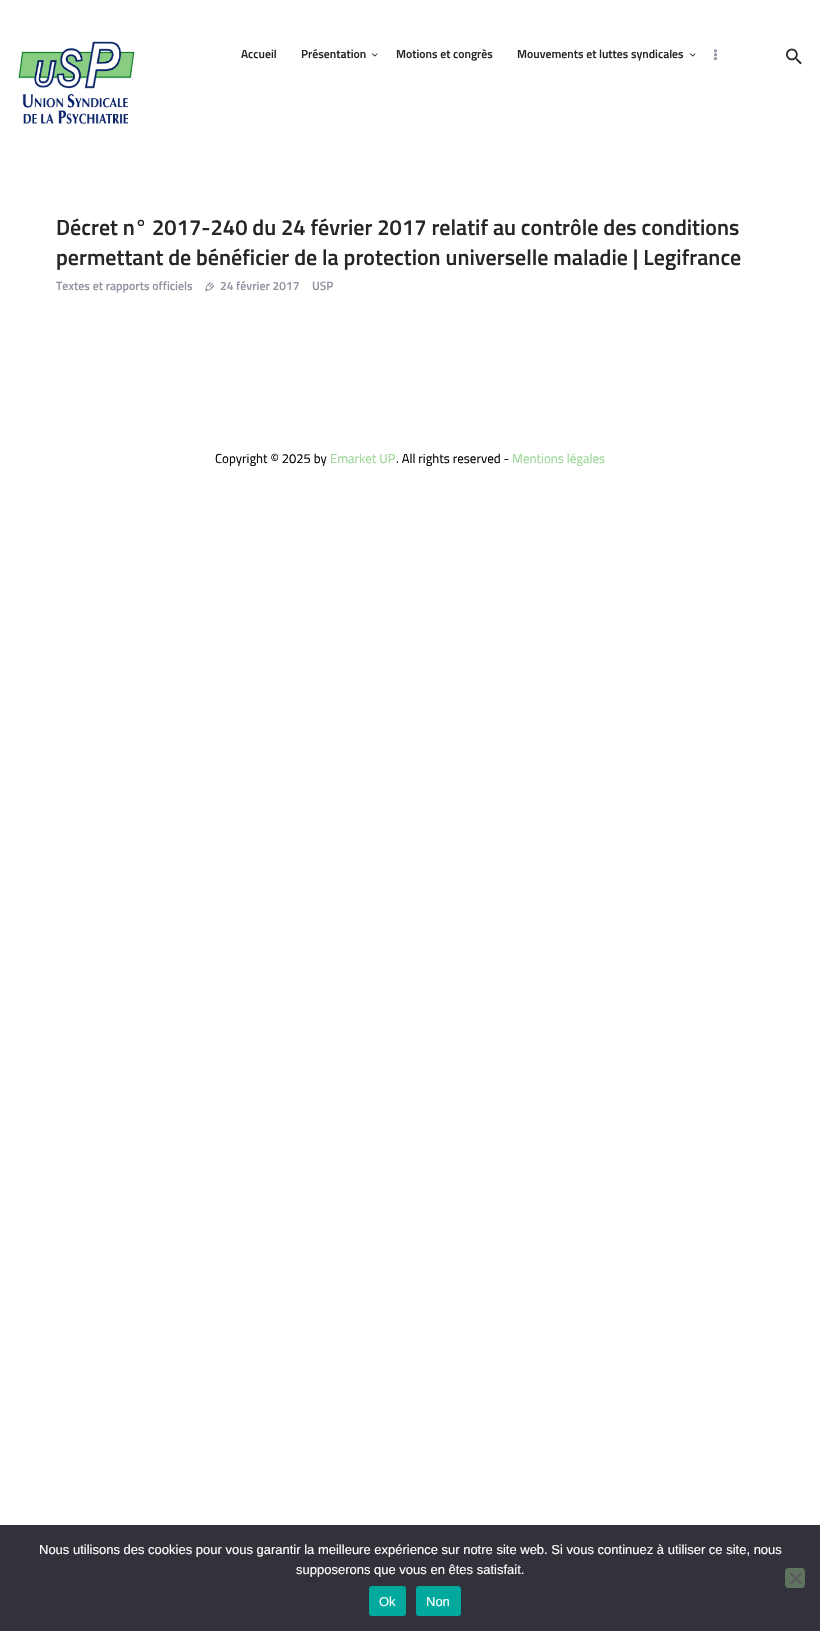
#include "include/core/SkBlurTypes.h"
#include "include/core/SkCanvas.h"
#include "include/core/SkData.h"
#include "include/core/SkFont.h"
#include "include/core/SkFontMgr.h"
#include "include/core/SkImage.h"
#include "include/core/SkMaskFilter.h"
#include "include/core/SkPaint.h"
#include "include/core/SkPathBuilder.h"
#include "include/core/SkTextBlob.h"
#include "include/effects/SkDashPathEffect.h"
#include "include/effects/SkGradientShader.h"
#include "include/utils/SkParsePath.h"

extern sk_sp<SkFontMgr> fontMgr;

static SkFont font(const char* family, int weight, float size, bool italic = false) {
    SkFontStyle style(weight, SkFontStyle::kNormal_Width,
        italic ? SkFontStyle::kItalic_Slant : SkFontStyle::kUpright_Slant);
    SkFont result(fontMgr->matchFamilyStyle(family, style), size);
    result.setSubpixel(true);
    return result;
}

static void drawLabel(SkCanvas* canvas, const char* s, float x, float y, const SkFont& font, SkColor color) {
    SkPaint ink(SkColor4f::FromColor(color));
    ink.setAntiAlias(true);
    canvas->drawString(s, x, y, font, ink);
}

static void fillRect(SkCanvas* canvas, float x, float y, float w, float h, SkColor color) {
    SkPaint ink(SkColor4f::FromColor(color));
    ink.setAntiAlias(true);
    canvas->drawRect(SkRect::MakeXYWH(x, y, w, h), ink);
}

static void fillRRect(SkCanvas* canvas, float x, float y, float w, float h, float radius, SkColor color) {
    SkPaint ink(SkColor4f::FromColor(color));
    ink.setAntiAlias(true);
    canvas->drawRoundRect(SkRect::MakeXYWH(x, y, w, h), radius, radius, ink);
}

static void drawPhoto(SkCanvas* canvas, const char* path, float x, float y, float w, float h) {
    auto image = SkImages::DeferredFromEncodedData(SkData::MakeFromFileName(path));
    canvas->drawImageRect(image, SkRect::MakeXYWH(x, y, w, h), SkSamplingOptions());
}

static SkPath parsePath(const char* data, bool evenOdd = false) {
    SkPath result = *SkParsePath::FromSVGString(data);
    if (evenOdd) result.setFillType(SkPathFillType::kEvenOdd);
    return result;
}

void draw(SkCanvas* canvas) {
    SkPaint paint;
    paint.setAntiAlias(true);
    canvas->clear(0xFFFFFFFF);
    drawPhoto(canvas, "assets/img1.png", 18, 41, 117, 84);
    SkFont font1 = font("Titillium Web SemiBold", 600, 11.8f);
    drawLabel(canvas, "Accueil", 241, 58, font1, 0xFF262626);
    drawLabel(canvas, "Présentation", 301, 58, font1, 0xFF262626);
    drawPhoto(canvas, "assets/img2.png", 372, 53, 6, 4);
    drawLabel(canvas, "Motions et congrès", 396, 58, font1, 0xFF262626);
    drawLabel(canvas, "Mouvements et luttes syndicales", 517, 58, font1, 0xFF262626);
    drawPhoto(canvas, "assets/img2.png", 690, 53, 6, 4);
    drawPhoto(canvas, "assets/img3.png", 714, 49, 3, 12);
    drawPhoto(canvas, "assets/img4.png", 786, 48, 16, 17);
    SkFont font2 = font("Titillium Web SemiBold", 600, 22);
    drawLabel(canvas, "Décret n° 2017-240 du 24 février 2017 relatif au contrôle des conditions", 56, 235, font2, 0xFF262626);
    drawLabel(canvas, "permettant de bénéficier de la protection universelle maladie | Legifrance", 56, 265, font2, 0xFF262626);
    SkFont font3 = font("Titillium Web SemiBold", 600, 12);
    drawLabel(canvas, "Textes et rapports officiels", 56, 290, font3, 0xFF9693A2);
    drawPhoto(canvas, "assets/img5.png", 205, 282, 9, 10);
    drawLabel(canvas, "24 février 2017", 220, 290, font3, 0xFF9693A2);
    drawLabel(canvas, "USP", 312, 290, font3, 0xFF9693A2);
    SkFont font4 = font("Titillium Web", 400, 13);
    drawLabel(canvas, "Copyright © 2025 by", 215, 463, font4, 0xFF000000);
    drawLabel(canvas, "Emarket UP", 330, 463, font4, 0xFF9AD595);
    drawLabel(canvas, ". All rights reserved -", 396, 463, font4, 0xFF000000);
    drawLabel(canvas, "Mentions légales", 512, 463, font4, 0xFF9AD595);
    fillRect(canvas, 0, 1525, 820, 106, 0xFF32323A);
    SkFont font5 = font("Liberation Sans", 400, 13);
    drawLabel(canvas, "Nous utilisons des cookies pour vous garantir la meilleure expérience sur notre site web. Si vous continuez à utiliser ce site, nous", 39, 1554, font5, 0xFFFFFFFF);
    drawLabel(canvas, "supposerons que vous en êtes satisfait.", 296, 1574, font5, 0xFFFFFFFF);
    fillRRect(canvas, 785, 1568, 20, 20, 4, 0xFF5E7360);
    paint.setColor(0xFF59595D);
    canvas->drawPath(parsePath("M800.5 1572.5L802 1574L791.5 1584.5L790 1583Z"), paint);
    canvas->drawPath(parsePath("M790 1574L791.5 1572.5L802 1583L800.5 1584.5Z"), paint);
    fillRRect(canvas, 369, 1586, 37, 30, 3, 0xFF00A99D);
    drawLabel(canvas, "Ok", 379, 1606, font5, 0xFFFFFFFF);
    fillRRect(canvas, 416, 1586, 45, 30, 3, 0xFF00A99D);
    drawLabel(canvas, "Non", 426, 1606, font5, 0xFFFFFFFF);
}
